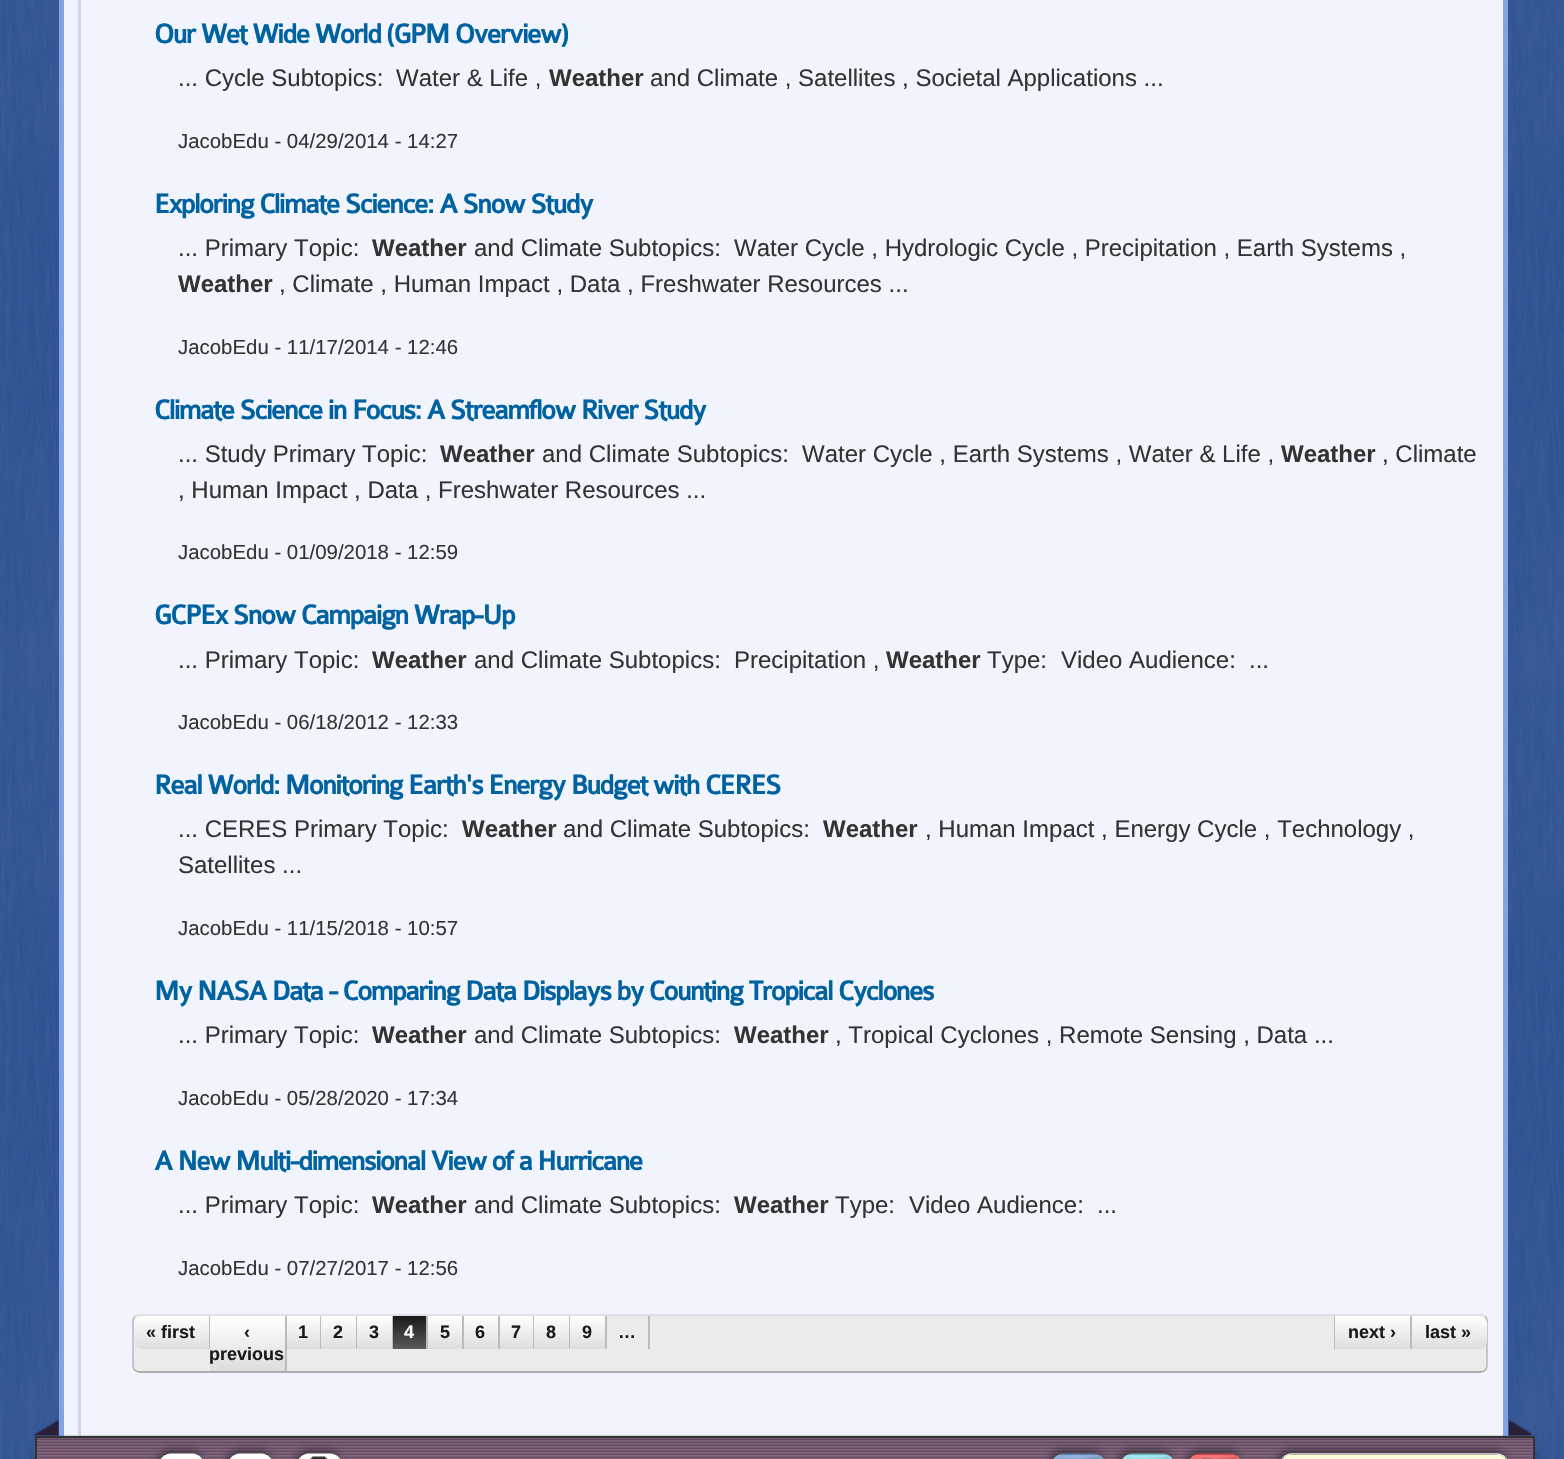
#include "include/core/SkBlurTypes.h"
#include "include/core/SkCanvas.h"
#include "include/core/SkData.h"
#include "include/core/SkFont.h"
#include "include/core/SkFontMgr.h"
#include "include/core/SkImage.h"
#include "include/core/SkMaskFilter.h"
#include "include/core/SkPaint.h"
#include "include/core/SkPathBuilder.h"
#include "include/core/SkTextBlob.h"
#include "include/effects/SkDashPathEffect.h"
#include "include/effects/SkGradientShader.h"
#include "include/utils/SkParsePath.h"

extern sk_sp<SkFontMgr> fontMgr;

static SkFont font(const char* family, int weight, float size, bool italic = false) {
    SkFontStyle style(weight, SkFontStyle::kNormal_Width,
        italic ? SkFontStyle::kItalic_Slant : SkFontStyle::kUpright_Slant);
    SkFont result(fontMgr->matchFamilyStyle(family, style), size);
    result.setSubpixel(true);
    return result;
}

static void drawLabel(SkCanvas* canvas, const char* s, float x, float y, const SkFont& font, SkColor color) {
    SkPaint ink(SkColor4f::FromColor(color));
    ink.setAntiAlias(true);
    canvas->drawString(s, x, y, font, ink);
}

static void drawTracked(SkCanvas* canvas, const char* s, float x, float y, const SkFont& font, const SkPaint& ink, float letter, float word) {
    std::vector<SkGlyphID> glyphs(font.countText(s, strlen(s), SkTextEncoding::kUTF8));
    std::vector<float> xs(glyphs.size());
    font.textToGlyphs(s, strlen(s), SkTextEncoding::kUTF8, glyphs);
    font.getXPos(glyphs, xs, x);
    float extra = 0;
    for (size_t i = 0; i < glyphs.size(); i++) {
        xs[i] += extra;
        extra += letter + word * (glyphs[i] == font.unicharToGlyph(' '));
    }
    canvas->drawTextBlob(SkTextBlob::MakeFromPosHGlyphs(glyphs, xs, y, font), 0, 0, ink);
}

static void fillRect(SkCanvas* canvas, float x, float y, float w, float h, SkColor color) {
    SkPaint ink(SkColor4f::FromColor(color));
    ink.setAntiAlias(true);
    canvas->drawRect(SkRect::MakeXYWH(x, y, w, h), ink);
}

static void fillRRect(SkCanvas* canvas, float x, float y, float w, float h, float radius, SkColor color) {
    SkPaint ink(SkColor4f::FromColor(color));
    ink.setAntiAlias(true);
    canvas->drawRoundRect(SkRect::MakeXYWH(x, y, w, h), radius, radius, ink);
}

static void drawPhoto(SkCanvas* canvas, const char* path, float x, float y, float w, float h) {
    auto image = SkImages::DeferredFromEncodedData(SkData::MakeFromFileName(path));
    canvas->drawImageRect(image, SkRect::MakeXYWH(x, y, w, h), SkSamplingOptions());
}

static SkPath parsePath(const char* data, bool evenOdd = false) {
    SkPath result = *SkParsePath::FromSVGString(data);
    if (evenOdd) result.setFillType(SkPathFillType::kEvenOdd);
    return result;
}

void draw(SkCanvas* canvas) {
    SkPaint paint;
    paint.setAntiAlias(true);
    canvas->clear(0xFFFFFFFF);
    drawPhoto(canvas, "assets/img1.png", 0, 0, 1564, 1459);
    fillRect(canvas, 64, 0, 1439, 1436, 0xFFF1F4FC);
    drawPhoto(canvas, "assets/img2.png", 77, 0, 4, 1436);
    fillRect(canvas, 1503, 0, 5, 1436, 0xFF83A3E4);
    fillRect(canvas, 59, 0, 5, 1436, 0xFF83A3E4);
    SkFont font1 = font("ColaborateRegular", 700, 28.8f);
    paint.setColor(0xFF0062A0);
    drawTracked(canvas, "Our Wet Wide World (GPM Overview)", 154, 43, font1, paint, -1.45f, 0);
    SkFont font2 = font("Liberation Sans", 400, 24);
    drawLabel(canvas, "... Cycle Subtopics:", 178, 86, font2, 0xFF333333);
    drawLabel(canvas, "Water & Life ,", 396, 86, font2, 0xFF333333);
    SkFont font3 = font("Liberation Sans", 700, 24);
    drawLabel(canvas, "Weather", 549, 86, font3, 0xFF333333);
    drawLabel(canvas, "and Climate , Satellites , Societal Applications ...", 650, 86, font2, 0xFF333333);
    SkFont font4 = font("Liberation Sans", 400, 20.4f);
    drawLabel(canvas, "JacobEdu - 04/29/2014 - 14:27", 178, 148, font4, 0xFF333333);
    drawTracked(canvas, "Exploring Climate Science: A Snow Study", 154, 213, font1, paint, -1.45f, 0);
    drawLabel(canvas, "... Primary Topic:", 178, 256, font2, 0xFF333333);
    drawLabel(canvas, "Weather", 372, 256, font3, 0xFF333333);
    drawLabel(canvas, "and Climate Subtopics:", 474, 256, font2, 0xFF333333);
    drawLabel(canvas, "Water Cycle , Hydrologic Cycle , Precipitation , Earth Systems ,", 734, 256, font2, 0xFF333333);
    drawLabel(canvas, "Weather", 178, 292, font3, 0xFF333333);
    drawLabel(canvas, ", Climate , Human Impact , Data , Freshwater Resources ...", 279, 292, font2, 0xFF333333);
    drawLabel(canvas, "JacobEdu - 11/17/2014 - 12:46", 178, 354, font4, 0xFF333333);
    drawTracked(canvas, "Climate Science in Focus: A Streamflow River Study", 154, 419, font1, paint, -1.45f, 0);
    drawLabel(canvas, "... Study Primary Topic:", 178, 462, font2, 0xFF333333);
    drawLabel(canvas, "Weather", 440, 462, font3, 0xFF333333);
    drawLabel(canvas, "and Climate Subtopics:", 542, 462, font2, 0xFF333333);
    drawLabel(canvas, "Water Cycle , Earth Systems , Water & Life ,", 802, 462, font2, 0xFF333333);
    drawLabel(canvas, "Weather", 1281, 462, font3, 0xFF333333);
    drawLabel(canvas, ", Climate", 1382, 462, font2, 0xFF333333);
    drawLabel(canvas, ", Human Impact , Data , Freshwater Resources ...", 178, 498, font2, 0xFF333333);
    drawLabel(canvas, "JacobEdu - 01/09/2018 - 12:59", 178, 559, font4, 0xFF333333);
    drawTracked(canvas, "GCPEx Snow Campaign Wrap-Up", 154, 624, font1, paint, -1.45f, 0);
    drawLabel(canvas, "... Primary Topic:", 178, 668, font2, 0xFF333333);
    drawLabel(canvas, "Weather", 372, 668, font3, 0xFF333333);
    drawLabel(canvas, "and Climate Subtopics:", 474, 668, font2, 0xFF333333);
    drawLabel(canvas, "Precipitation ,", 734, 668, font2, 0xFF333333);
    drawLabel(canvas, "Weather", 886, 668, font3, 0xFF333333);
    drawLabel(canvas, "Type:", 987, 668, font2, 0xFF333333);
    drawLabel(canvas, "Video Audience:", 1061, 668, font2, 0xFF333333);
    drawLabel(canvas, "...", 1249, 668, font2, 0xFF333333);
    drawLabel(canvas, "JacobEdu - 06/18/2012 - 12:33", 178, 729, font4, 0xFF333333);
    drawTracked(canvas, "Real World: Monitoring Earth's Energy Budget with CERES", 154, 794, font1, paint, -1.45f, 0);
    drawLabel(canvas, "... CERES Primary Topic:", 178, 837, font2, 0xFF333333);
    drawLabel(canvas, "Weather", 462, 837, font3, 0xFF333333);
    drawLabel(canvas, "and Climate Subtopics:", 563, 837, font2, 0xFF333333);
    drawLabel(canvas, "Weather", 823, 837, font3, 0xFF333333);
    drawLabel(canvas, ", Human Impact , Energy Cycle , Technology ,", 925, 837, font2, 0xFF333333);
    drawLabel(canvas, "Satellites ...", 178, 873, font2, 0xFF333333);
    drawLabel(canvas, "JacobEdu - 11/15/2018 - 10:57", 178, 935, font4, 0xFF333333);
    drawTracked(canvas, "My NASA Data - Comparing Data Displays by Counting Tropical Cyclones", 154, 1000, font1, paint, -1.45f, 0);
    drawLabel(canvas, "... Primary Topic:", 178, 1043, font2, 0xFF333333);
    drawLabel(canvas, "Weather", 372, 1043, font3, 0xFF333333);
    drawLabel(canvas, "and Climate Subtopics:", 474, 1043, font2, 0xFF333333);
    drawLabel(canvas, "Weather", 734, 1043, font3, 0xFF333333);
    drawLabel(canvas, ", Tropical Cyclones , Remote Sensing , Data ...", 835, 1043, font2, 0xFF333333);
    drawLabel(canvas, "JacobEdu - 05/28/2020 - 17:34", 178, 1105, font4, 0xFF333333);
    drawTracked(canvas, "A New Multi-dimensional View of a Hurricane", 154, 1170, font1, paint, -1.45f, 0);
    drawLabel(canvas, "... Primary Topic:", 178, 1213, font2, 0xFF333333);
    drawLabel(canvas, "Weather", 372, 1213, font3, 0xFF333333);
    drawLabel(canvas, "and Climate Subtopics:", 474, 1213, font2, 0xFF333333);
    drawLabel(canvas, "Weather", 734, 1213, font3, 0xFF333333);
    drawLabel(canvas, "Type:", 835, 1213, font2, 0xFF333333);
    drawLabel(canvas, "Video Audience:", 909, 1213, font2, 0xFF333333);
    drawLabel(canvas, "...", 1097, 1213, font2, 0xFF333333);
    drawLabel(canvas, "JacobEdu - 07/27/2017 - 12:56", 178, 1275, font4, 0xFF333333);
    fillRRect(canvas, 132, 1314, 1356, 59, 8, 0xFFEBEBEB);
    paint.setStroke(true);
    paint.setStrokeWidth(1.5f);
    paint.setColor(0xFFDDDDDD);
    canvas->drawPath(parsePath("M134.5 1316.5C136 1315.5 137.5 1315 139.5 1315H1480.5C1482.5 1315 1484 1315.5 1485.5 1316.5"), paint);
    paint.setColor(0xFFBBBBBB);
    canvas->drawPath(parsePath("M1485.5 1316.5C1486.5 1318 1487 1319.5 1487 1321.5V1365C1487 1367 1486.5 1368.5 1485.5 1370"), paint);
    paint.setColor(0xFF999999);
    canvas->drawPath(parsePath("M1485.5 1370C1484 1371 1482.5 1372 1480.5 1372H139.5C137.5 1372 136 1371 134.5 1370"), paint);
    paint.setColor(0xFFBBBBBB);
    canvas->drawPath(parsePath("M134.5 1370C133.5 1368.5 133 1367 133 1365V1321.5C133 1319.5 133.5 1318 134.5 1316.5"), paint);
    fillRect(canvas, 209, 1316, 1, 33, 0xFFBBBBBB);
    paint.setStroke(false);
    {
        const SkColor colors[] = {0xFFFFFFFF, 0xFFDDDDDD};
        const float stops[] = {0, 1};
        const SkPoint ends[] = {{134, 1316}, {134, 1349}};
        paint.setShader(SkGradientShader::MakeLinear(ends, colors, stops, 2, SkTileMode::kClamp));
        paint.setAlpha(255);
    }
    canvas->drawPath(parsePath("M142 1316H209V1349H142C137.5 1349 134 1345.5 134 1341V1324C134 1319.5 137.5 1316 142 1316Z"), paint);
    SkFont font5 = font("Liberation Sans", 700, 18);
    drawLabel(canvas, "« first", 146, 1338, font5, 0xFF1A1A1A);
    fillRect(canvas, 285, 1316, 2, 55, 0xFFBBBBBB);
    {
        const SkColor colors[] = {0xFFFFFFFF, 0xFFDDDDDD};
        const float stops[] = {0, 1};
        const SkPoint ends[] = {{210, 1316}, {210, 1371}};
        paint.setShader(SkGradientShader::MakeLinear(ends, colors, stops, 2, SkTileMode::kClamp));
        paint.setAlpha(255);
    }
    canvas->drawRect(SkRect::MakeXYWH(210, 1316, 75, 55), paint);
    drawLabel(canvas, "‹", 244, 1338, font5, 0xFF1A1A1A);
    drawLabel(canvas, "previous", 209, 1360, font5, 0xFF1A1A1A);
    fillRect(canvas, 320, 1316, 1, 33, 0xFFBBBBBB);
    {
        const SkColor colors[] = {0xFFFFFFFF, 0xFFDDDDDD};
        const float stops[] = {0, 1};
        const SkPoint ends[] = {{287, 1316}, {287, 1349}};
        paint.setShader(SkGradientShader::MakeLinear(ends, colors, stops, 2, SkTileMode::kClamp));
        paint.setAlpha(255);
    }
    canvas->drawRect(SkRect::MakeXYWH(287, 1316, 33, 33), paint);
    drawLabel(canvas, "1", 298, 1338, font5, 0xFF1A1A1A);
    fillRect(canvas, 356, 1316, 1, 33, 0xFFBBBBBB);
    {
        const SkColor colors[] = {0xFFFFFFFF, 0xFFDDDDDD};
        const float stops[] = {0, 1};
        const SkPoint ends[] = {{321, 1316}, {321, 1349}};
        paint.setShader(SkGradientShader::MakeLinear(ends, colors, stops, 2, SkTileMode::kClamp));
        paint.setAlpha(255);
    }
    canvas->drawRect(SkRect::MakeXYWH(321, 1316, 35, 33), paint);
    drawLabel(canvas, "2", 333, 1338, font5, 0xFF1A1A1A);
    fillRect(canvas, 392, 1316, 1, 33, 0xFFBBBBBB);
    {
        const SkColor colors[] = {0xFFFFFFFF, 0xFFDDDDDD};
        const float stops[] = {0, 1};
        const SkPoint ends[] = {{357, 1316}, {357, 1349}};
        paint.setShader(SkGradientShader::MakeLinear(ends, colors, stops, 2, SkTileMode::kClamp));
        paint.setAlpha(255);
    }
    canvas->drawRect(SkRect::MakeXYWH(357, 1316, 35, 33), paint);
    drawLabel(canvas, "3", 369, 1338, font5, 0xFF1A1A1A);
    {
        const SkColor colors[] = {0xFF1A1A1A, 0xFF5A5A5A};
        const float stops[] = {0, 1};
        const SkPoint ends[] = {{393, 1316}, {393, 1349}};
        paint.setShader(SkGradientShader::MakeLinear(ends, colors, stops, 2, SkTileMode::kClamp));
        paint.setAlpha(255);
    }
    canvas->drawRect(SkRect::MakeXYWH(393, 1316, 33, 33), paint);
    fillRect(canvas, 426, 1316, 2, 33, 0xFFBBBBBB);
    drawLabel(canvas, "4", 404, 1338, font5, 0xFFFFFFFF);
    fillRect(canvas, 462, 1316, 2, 33, 0xFFBBBBBB);
    {
        const SkColor colors[] = {0xFFFFFFFF, 0xFFDDDDDD};
        const float stops[] = {0, 1};
        const SkPoint ends[] = {{428, 1316}, {428, 1349}};
        paint.setShader(SkGradientShader::MakeLinear(ends, colors, stops, 2, SkTileMode::kClamp));
        paint.setAlpha(255);
    }
    canvas->drawRect(SkRect::MakeXYWH(428, 1316, 34, 33), paint);
    drawLabel(canvas, "5", 440, 1338, font5, 0xFF1A1A1A);
    fillRect(canvas, 498, 1316, 2, 33, 0xFFBBBBBB);
    {
        const SkColor colors[] = {0xFFFFFFFF, 0xFFDDDDDD};
        const float stops[] = {0, 1};
        const SkPoint ends[] = {{464, 1316}, {464, 1349}};
        paint.setShader(SkGradientShader::MakeLinear(ends, colors, stops, 2, SkTileMode::kClamp));
        paint.setAlpha(255);
    }
    canvas->drawRect(SkRect::MakeXYWH(464, 1316, 34, 33), paint);
    drawLabel(canvas, "6", 475, 1338, font5, 0xFF1A1A1A);
    fillRect(canvas, 533, 1316, 1, 33, 0xFFBBBBBB);
    {
        const SkColor colors[] = {0xFFFFFFFF, 0xFFDDDDDD};
        const float stops[] = {0, 1};
        const SkPoint ends[] = {{500, 1316}, {500, 1349}};
        paint.setShader(SkGradientShader::MakeLinear(ends, colors, stops, 2, SkTileMode::kClamp));
        paint.setAlpha(255);
    }
    canvas->drawRect(SkRect::MakeXYWH(500, 1316, 33, 33), paint);
    drawLabel(canvas, "7", 511, 1338, font5, 0xFF1A1A1A);
    fillRect(canvas, 569, 1316, 1, 33, 0xFFBBBBBB);
    {
        const SkColor colors[] = {0xFFFFFFFF, 0xFFDDDDDD};
        const float stops[] = {0, 1};
        const SkPoint ends[] = {{534, 1316}, {534, 1349}};
        paint.setShader(SkGradientShader::MakeLinear(ends, colors, stops, 2, SkTileMode::kClamp));
        paint.setAlpha(255);
    }
    canvas->drawRect(SkRect::MakeXYWH(534, 1316, 35, 33), paint);
    drawLabel(canvas, "8", 546, 1338, font5, 0xFF1A1A1A);
    fillRect(canvas, 605, 1316, 2, 33, 0xFFBBBBBB);
    {
        const SkColor colors[] = {0xFFFFFFFF, 0xFFDDDDDD};
        const float stops[] = {0, 1};
        const SkPoint ends[] = {{570, 1316}, {570, 1349}};
        paint.setShader(SkGradientShader::MakeLinear(ends, colors, stops, 2, SkTileMode::kClamp));
        paint.setAlpha(255);
    }
    canvas->drawRect(SkRect::MakeXYWH(570, 1316, 35, 33), paint);
    drawLabel(canvas, "9", 582, 1338, font5, 0xFF1A1A1A);
    fillRect(canvas, 648, 1316, 2, 33, 0xFFBBBBBB);
    drawLabel(canvas, "…", 618, 1338, font5, 0xFF1A1A1A);
    fillRect(canvas, 1410, 1316, 2, 33, 0xFFBBBBBB);
    fillRect(canvas, 1334, 1316, 1, 33, 0xFFBBBBBB);
    {
        const SkColor colors[] = {0xFFFFFFFF, 0xFFDDDDDD};
        const float stops[] = {0, 1};
        const SkPoint ends[] = {{1335, 1316}, {1335, 1349}};
        paint.setShader(SkGradientShader::MakeLinear(ends, colors, stops, 2, SkTileMode::kClamp));
        paint.setAlpha(255);
    }
    canvas->drawRect(SkRect::MakeXYWH(1335, 1316, 75, 33), paint);
    drawLabel(canvas, "next ›", 1348, 1338, font5, 0xFF1A1A1A);
    {
        const SkColor colors[] = {0xFFFFFFFF, 0xFFDDDDDD};
        const float stops[] = {0, 1};
        const SkPoint ends[] = {{1412, 1316}, {1412, 1349}};
        paint.setShader(SkGradientShader::MakeLinear(ends, colors, stops, 2, SkTileMode::kClamp));
        paint.setAlpha(255);
    }
    canvas->drawPath(parsePath("M1412 1316H1479C1483.5 1316 1487 1319.5 1487 1324V1341C1487 1345.5 1483.5 1349 1479 1349H1412Z"), paint);
    drawLabel(canvas, "last »", 1425, 1338, font5, 0xFF1A1A1A);
    drawPhoto(canvas, "assets/img3.png", 34, 1420, 25, 16);
    drawPhoto(canvas, "assets/img4.png", 1509, 1420, 23, 16);
    paint.setShader(nullptr);
    paint.setColor(0x66000000);
    paint.setMaskFilter(SkMaskFilter::MakeBlur(kNormal_SkBlurStyle, 6));
    canvas->drawRoundRect(SkRect::MakeXYWH(35, 1448, 1500, 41), 12, 12, paint);
    paint.setMaskFilter(nullptr);
    drawPhoto(canvas, "assets/img5.png", 34, 1435, 1501, 24);
    paint.setStroke(true);
    paint.setStrokeWidth(2);
    paint.setColor(0xFF333333);
    canvas->drawRect(SkRect::MakeXYWH(36, 1437, 1498, 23), paint);
    paint.setStroke(false);
    paint.setColor(0x99000000);
    paint.setMaskFilter(SkMaskFilter::MakeBlur(kNormal_SkBlurStyle, 4.5f));
    canvas->drawRoundRect(SkRect::MakeXYWH(158, 1451, 45, 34), 12, 12, paint);
    paint.setMaskFilter(nullptr);
    paint.setColor(0x80FFFFFF);
    paint.setMaskFilter(SkMaskFilter::MakeBlur(kNormal_SkBlurStyle, 4.5f));
    canvas->drawRoundRect(SkRect::MakeXYWH(161, 1458, 45, 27), 12, 12, paint);
    paint.setMaskFilter(nullptr);
    drawPhoto(canvas, "assets/img6.png", 160, 1453, 43, 6);
    paint.setColor(0x99000000);
    paint.setMaskFilter(SkMaskFilter::MakeBlur(kNormal_SkBlurStyle, 4.5f));
    canvas->drawRoundRect(SkRect::MakeXYWH(227, 1451, 45, 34), 12, 12, paint);
    paint.setMaskFilter(nullptr);
    paint.setColor(0x80FFFFFF);
    paint.setMaskFilter(SkMaskFilter::MakeBlur(kNormal_SkBlurStyle, 4.5f));
    canvas->drawRoundRect(SkRect::MakeXYWH(230, 1458, 45, 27), 12, 12, paint);
    paint.setMaskFilter(nullptr);
    drawPhoto(canvas, "assets/img6.png", 229, 1453, 43, 6);
    paint.setColor(0x99000000);
    paint.setMaskFilter(SkMaskFilter::MakeBlur(kNormal_SkBlurStyle, 4.5f));
    canvas->drawRoundRect(SkRect::MakeXYWH(296, 1451, 45, 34), 12, 12, paint);
    paint.setMaskFilter(nullptr);
    paint.setColor(0x80FFFFFF);
    paint.setMaskFilter(SkMaskFilter::MakeBlur(kNormal_SkBlurStyle, 4.5f));
    canvas->drawRoundRect(SkRect::MakeXYWH(299, 1458, 45, 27), 12, 12, paint);
    paint.setMaskFilter(nullptr);
    drawPhoto(canvas, "assets/img7.png", 298, 1453, 43, 6);
    canvas->save();
    canvas->clipPath(parsePath("M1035 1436H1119V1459H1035ZM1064 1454H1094C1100.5 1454 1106 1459.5 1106 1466V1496C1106 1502.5 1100.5 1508 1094 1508H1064C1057.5 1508 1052 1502.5 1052 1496V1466C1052 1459.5 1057.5 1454 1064 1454Z", true), true);
    paint.setColor(0x99000000);
    paint.setMaskFilter(SkMaskFilter::MakeBlur(kNormal_SkBlurStyle, 4.5f));
    canvas->drawRoundRect(SkRect::MakeXYWH(1050, 1451, 54, 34), 12, 12, paint);
    paint.setMaskFilter(nullptr);
    canvas->restore();
    canvas->save();
    canvas->clipPath(parsePath("M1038 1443H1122V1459H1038ZM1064 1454H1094C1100.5 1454 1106 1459.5 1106 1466V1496C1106 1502.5 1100.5 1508 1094 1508H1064C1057.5 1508 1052 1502.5 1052 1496V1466C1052 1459.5 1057.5 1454 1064 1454Z", true), true);
    paint.setColor(0x80FFFFFF);
    paint.setMaskFilter(SkMaskFilter::MakeBlur(kNormal_SkBlurStyle, 4.5f));
    canvas->drawRoundRect(SkRect::MakeXYWH(1053, 1458, 54, 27), 12, 12, paint);
    paint.setMaskFilter(nullptr);
    canvas->restore();
    drawPhoto(canvas, "assets/img8.png", 1053, 1453, 51, 6);
    canvas->save();
    canvas->clipPath(parsePath("M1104 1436H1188V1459H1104ZM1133 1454H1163C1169.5 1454 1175 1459.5 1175 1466V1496C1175 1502.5 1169.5 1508 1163 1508H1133C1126.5 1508 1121 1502.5 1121 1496V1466C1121 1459.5 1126.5 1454 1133 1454Z", true), true);
    paint.setColor(0x99000000);
    paint.setMaskFilter(SkMaskFilter::MakeBlur(kNormal_SkBlurStyle, 4.5f));
    canvas->drawRoundRect(SkRect::MakeXYWH(1119, 1451, 54, 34), 12, 12, paint);
    paint.setMaskFilter(nullptr);
    canvas->restore();
    canvas->save();
    canvas->clipPath(parsePath("M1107 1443H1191V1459H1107ZM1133 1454H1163C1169.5 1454 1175 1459.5 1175 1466V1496C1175 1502.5 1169.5 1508 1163 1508H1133C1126.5 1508 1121 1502.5 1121 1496V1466C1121 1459.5 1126.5 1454 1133 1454Z", true), true);
    paint.setColor(0x80FFFFFF);
    paint.setMaskFilter(SkMaskFilter::MakeBlur(kNormal_SkBlurStyle, 4.5f));
    canvas->drawRoundRect(SkRect::MakeXYWH(1122, 1458, 54, 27), 12, 12, paint);
    paint.setMaskFilter(nullptr);
    canvas->restore();
    drawPhoto(canvas, "assets/img9.png", 1122, 1453, 51, 6);
    canvas->save();
    canvas->clipPath(parsePath("M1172 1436H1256V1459H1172ZM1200 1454H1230C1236.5 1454 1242 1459.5 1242 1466V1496C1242 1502.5 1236.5 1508 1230 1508H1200C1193.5 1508 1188 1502.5 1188 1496V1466C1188 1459.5 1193.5 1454 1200 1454Z", true), true);
    paint.setColor(0x99000000);
    paint.setMaskFilter(SkMaskFilter::MakeBlur(kNormal_SkBlurStyle, 4.5f));
    canvas->drawRoundRect(SkRect::MakeXYWH(1187, 1451, 54, 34), 12, 12, paint);
    paint.setMaskFilter(nullptr);
    canvas->restore();
    canvas->save();
    canvas->clipPath(parsePath("M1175 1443H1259V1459H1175ZM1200 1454H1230C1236.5 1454 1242 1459.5 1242 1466V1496C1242 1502.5 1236.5 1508 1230 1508H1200C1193.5 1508 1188 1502.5 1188 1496V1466C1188 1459.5 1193.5 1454 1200 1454Z", true), true);
    paint.setColor(0x80FFFFFF);
    paint.setMaskFilter(SkMaskFilter::MakeBlur(kNormal_SkBlurStyle, 4.5f));
    canvas->drawRoundRect(SkRect::MakeXYWH(1190, 1458, 54, 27), 12, 12, paint);
    paint.setMaskFilter(nullptr);
    canvas->restore();
    drawPhoto(canvas, "assets/img10.png", 1190, 1453, 50, 6);
    paint.setColor(0x99000000);
    paint.setMaskFilter(SkMaskFilter::MakeBlur(kNormal_SkBlurStyle, 4.5f));
    canvas->drawRoundRect(SkRect::MakeXYWH(1278, 1451, 230, 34), 12, 12, paint);
    paint.setMaskFilter(nullptr);
    paint.setColor(0x80FFFFFF);
    paint.setMaskFilter(SkMaskFilter::MakeBlur(kNormal_SkBlurStyle, 4.5f));
    canvas->drawRoundRect(SkRect::MakeXYWH(1281, 1458, 230, 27), 12, 12, paint);
    paint.setMaskFilter(nullptr);
    canvas->save();
    canvas->clipPath(parsePath("M1292 1454H1497C1503.5 1454 1509 1459.5 1509 1466V1497C1509 1503.5 1503.5 1509 1497 1509H1292C1285.5 1509 1280 1503.5 1280 1497V1466C1280 1459.5 1285.5 1454 1292 1454Z"), true);
    {
        const SkColor colors[] = {0xFFFFFFCF, 0xFFFFFFE0, 0xFFFEE370, 0xFFFEDC52, 0xFFFDD43B, 0xFFFBDB51, 0xFFFCE462};
        const float stops[] = {0, 0.09f, 0.68f, 0.75f, 0.88f, 0.91f, 1};
        const SkPoint ends[] = {{1394, 1455}, {1394, 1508}};
        paint.setShader(SkGradientShader::MakeLinear(ends, colors, stops, 7, SkTileMode::kClamp));
        paint.setAlpha(255);
    }
    canvas->drawRect(SkRect::MakeXYWH(1280, 1455, 229, 4), paint);
    canvas->restore();
    paint.setStroke(true);
    paint.setStrokeWidth(1.5f);
    paint.setShader(nullptr);
    paint.setColor(0xFFDDDDDD);
    canvas->drawPath(parsePath("M1283.5 1457.5C1285.5 1455.5 1288.5 1454 1291.5 1454H1497C1500 1454 1503 1455.5 1505 1457.5"), paint);
    paint.setColor(0xFFBBBBBB);
    canvas->drawPath(parsePath("M1505 1457.5C1507 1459.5 1508 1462.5 1508 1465.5V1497C1508 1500 1507 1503 1505 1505"), paint);
    canvas->drawPath(parsePath("M1283.5 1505C1281.5 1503 1280 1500 1280 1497V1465.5C1280 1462.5 1281.5 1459.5 1283.5 1457.5"), paint);
}
